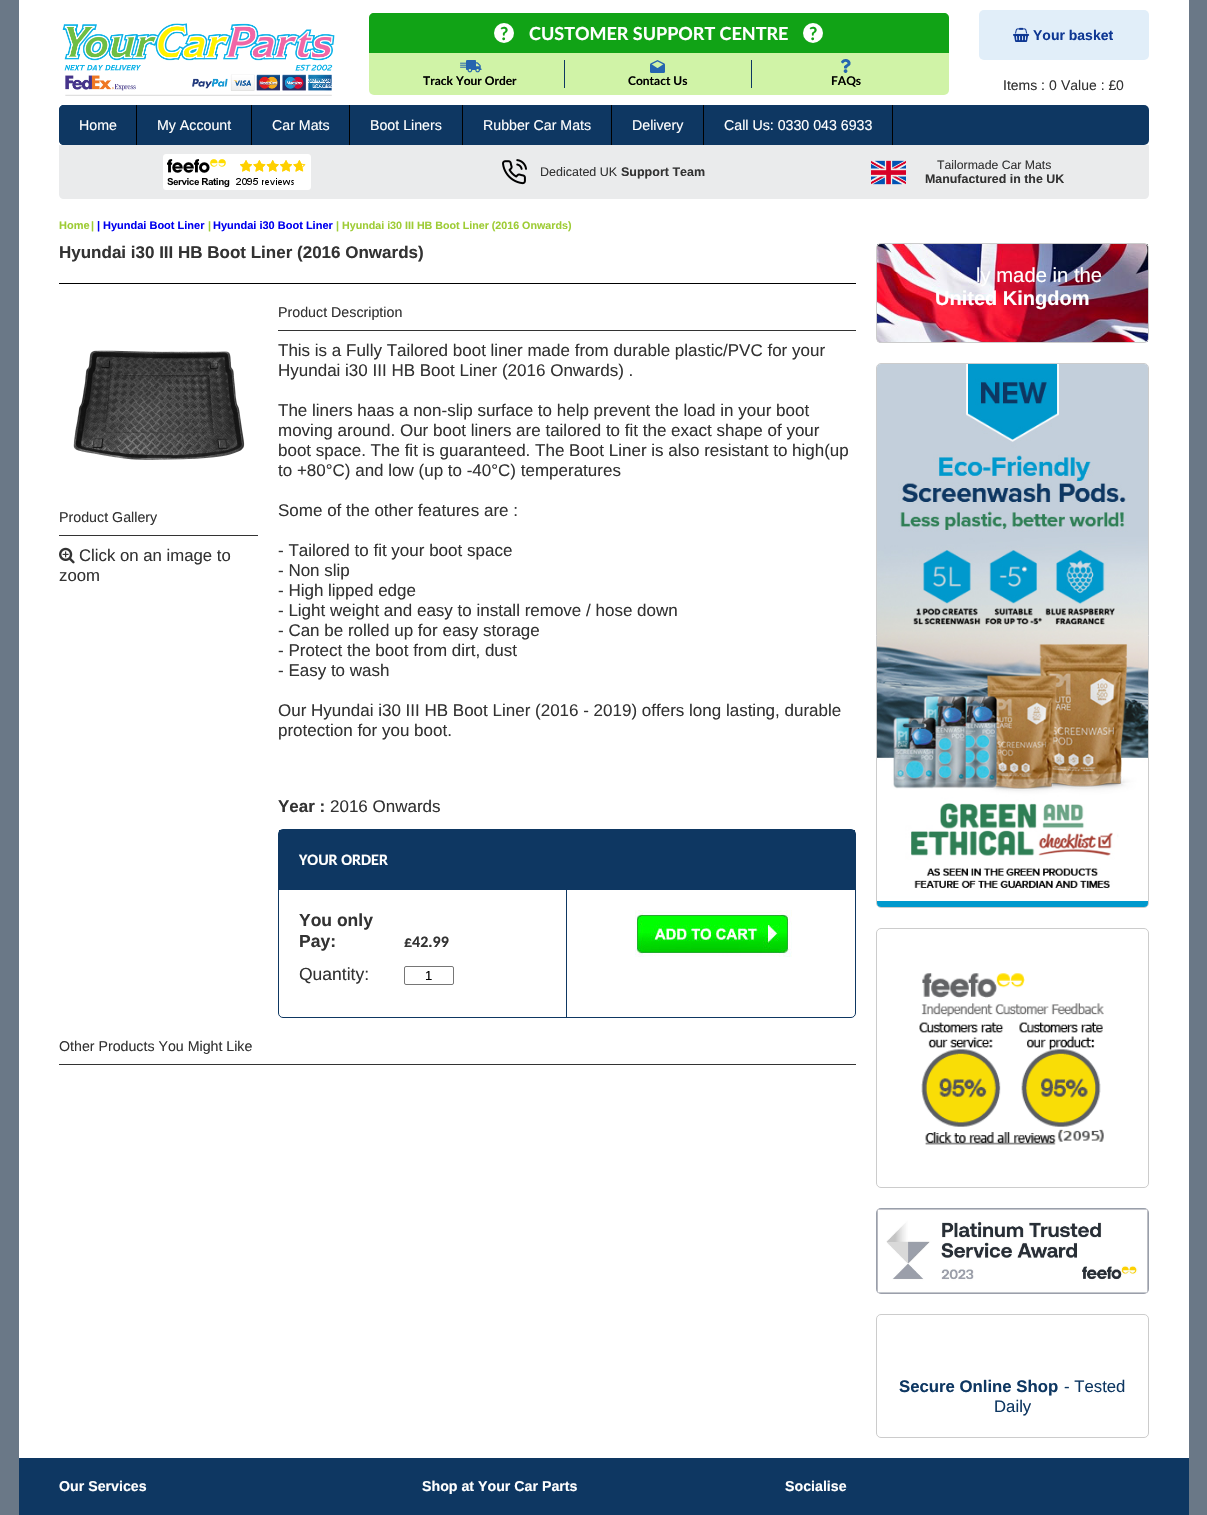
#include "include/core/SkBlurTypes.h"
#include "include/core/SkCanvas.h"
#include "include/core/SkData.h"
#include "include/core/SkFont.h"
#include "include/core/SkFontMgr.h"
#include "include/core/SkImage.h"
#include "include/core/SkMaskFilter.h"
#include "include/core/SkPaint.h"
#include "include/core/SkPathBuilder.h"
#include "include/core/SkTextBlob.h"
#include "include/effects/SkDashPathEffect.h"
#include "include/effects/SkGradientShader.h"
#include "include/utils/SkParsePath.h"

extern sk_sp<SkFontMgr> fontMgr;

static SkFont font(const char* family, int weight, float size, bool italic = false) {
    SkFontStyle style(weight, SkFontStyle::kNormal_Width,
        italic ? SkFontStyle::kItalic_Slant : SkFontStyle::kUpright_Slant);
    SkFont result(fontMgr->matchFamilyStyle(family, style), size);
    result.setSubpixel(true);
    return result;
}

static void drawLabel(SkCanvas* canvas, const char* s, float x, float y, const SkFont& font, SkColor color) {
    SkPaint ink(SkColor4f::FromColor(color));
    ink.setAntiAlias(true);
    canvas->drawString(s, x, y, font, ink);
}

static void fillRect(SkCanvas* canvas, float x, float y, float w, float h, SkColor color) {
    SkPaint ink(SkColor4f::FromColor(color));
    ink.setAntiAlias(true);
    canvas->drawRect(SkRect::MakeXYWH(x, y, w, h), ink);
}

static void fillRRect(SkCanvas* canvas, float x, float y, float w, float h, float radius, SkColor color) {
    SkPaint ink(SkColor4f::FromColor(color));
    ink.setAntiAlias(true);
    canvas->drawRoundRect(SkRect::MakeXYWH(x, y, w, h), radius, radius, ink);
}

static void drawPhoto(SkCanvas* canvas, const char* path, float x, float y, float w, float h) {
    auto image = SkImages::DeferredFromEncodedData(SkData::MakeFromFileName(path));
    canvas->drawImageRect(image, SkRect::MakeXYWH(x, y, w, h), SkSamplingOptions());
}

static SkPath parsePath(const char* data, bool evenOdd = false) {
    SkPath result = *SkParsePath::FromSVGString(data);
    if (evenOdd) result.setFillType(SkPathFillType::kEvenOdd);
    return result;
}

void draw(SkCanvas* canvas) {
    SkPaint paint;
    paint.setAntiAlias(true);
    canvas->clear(0xFF6A7887);
    fillRect(canvas, 19, 0, 1170, 1458, 0xFFFFFFFF);
    drawPhoto(canvas, "assets/img1.png", 62, 23, 273, 73);
    fillRRect(canvas, 369, 13, 580, 82, 5, 0xFFD0F3A7);
    paint.setColor(0xFF11A316);
    canvas->drawPath(parsePath("M374 13H944C947 13 949 15 949 18V53H369V18C369 15 371 13 374 13Z"), paint);
    paint.setColor(0xFFFFFFFF);
    canvas->drawCircle(504, 33, 10, paint);
    SkFont font1 = font("Lato", 700, 18);
    drawLabel(canvas, "?", 500, 40, font1, 0xFF11A316);
    drawLabel(canvas, "CUSTOMER SUPPORT CENTRE", 529, 40, font1, 0xFFFFFFFF);
    canvas->drawCircle(813, 33, 10, paint);
    drawLabel(canvas, "?", 809, 40, font1, 0xFF11A316);
    fillRect(canvas, 564, 60, 1, 28, 0xFF0E3762);
    drawPhoto(canvas, "assets/img2.png", 460, 60, 22, 13);
    SkFont font2 = font("Lato", 700, 12);
    drawLabel(canvas, "Track Your Order", 423, 85, font2, 0xFF000000);
    fillRect(canvas, 751, 60, 1, 28, 0xFF0E3762);
    drawPhoto(canvas, "assets/img3.png", 650, 60, 15, 13);
    drawLabel(canvas, "Contact Us", 628, 85, font2, 0xFF000000);
    drawPhoto(canvas, "assets/img4.png", 841, 59, 10, 14);
    drawLabel(canvas, "FAQs", 831, 85, font2, 0xFF000000);
    fillRRect(canvas, 979, 10, 170, 50, 5, 0xFFE1EEF9);
    drawPhoto(canvas, "assets/img5.png", 1013, 27, 17, 15);
    SkFont font3 = font("Liberation Sans", 700, 14);
    drawLabel(canvas, "Your basket", 1033, 40, font3, 0xFF0E3793);
    SkFont font4 = font("Liberation Sans", 400, 14);
    drawLabel(canvas, "Items :", 1003, 90, font4, 0xFF333333);
    drawLabel(canvas, "0", 1049, 90, font4, 0xFF333333);
    drawLabel(canvas, "Value : £", 1061, 90, font4, 0xFF333333);
    drawLabel(canvas, "0", 1116, 90, font4, 0xFF333333);
    fillRRect(canvas, 59, 105, 1090, 40, 5, 0xFF0E3762);
    paint.setColor(0xFF0E3762);
    canvas->drawPath(parsePath("M64 105H137V145H64C61 145 59 143 59 140V110C59 107 61 105 64 105Z"), paint);
    fillRect(canvas, 136, 105, 1, 40, 0xFF000000);
    SkFont font5 = font("Liberation Sans", 400, 14.2f);
    drawLabel(canvas, "Home", 79, 130, font5, 0xFFFFFFFF);
    fillRect(canvas, 251, 105, 1, 40, 0xFF000000);
    drawLabel(canvas, "My Account", 157, 130, font5, 0xFFFFFFFF);
    fillRect(canvas, 349, 105, 1, 40, 0xFF000000);
    drawLabel(canvas, "Car Mats", 272, 130, font5, 0xFFFFFFFF);
    fillRect(canvas, 462, 105, 1, 40, 0xFF000000);
    drawLabel(canvas, "Boot Liners", 370, 130, font5, 0xFFFFFFFF);
    fillRect(canvas, 611, 105, 1, 40, 0xFF000000);
    drawLabel(canvas, "Rubber Car Mats", 483, 130, font5, 0xFFFFFFFF);
    fillRect(canvas, 703, 105, 1, 40, 0xFF000000);
    drawLabel(canvas, "Delivery", 632, 130, font5, 0xFFFFFFFF);
    fillRect(canvas, 892, 105, 1, 40, 0xFF000000);
    drawLabel(canvas, "Call Us: 0330 043 6933", 724, 130, font5, 0xFFFFFFFF);
    paint.setColor(0xFFEAEBEC);
    canvas->drawPath(parsePath("M59 145H1149V194C1149 197 1147 199 1144 199H64C61 199 59 197 59 194Z"), paint);
    drawPhoto(canvas, "assets/img6.png", 163, 154, 148, 36);
    drawPhoto(canvas, "assets/img7.png", 502, 159, 25, 26);
    SkFont font6 = font("Liberation Sans", 400, 12.5f);
    drawLabel(canvas, "Dedicated UK", 540, 176, font6, 0xFF333333);
    SkFont font7 = font("Liberation Sans", 700, 12.5f);
    drawLabel(canvas, "Support Team", 621, 176, font7, 0xFF333333);
    drawPhoto(canvas, "assets/img8.png", 871, 160, 35, 25);
    SkFont font8 = font("Liberation Sans", 400, 12.25f);
    drawLabel(canvas, "Tailormade Car Mats", 937, 169, font8, 0xFF333333);
    SkFont font9 = font("Liberation Sans", 700, 12.4f);
    drawLabel(canvas, "Manufactured in the UK", 925, 183, font9, 0xFF333333);
    SkFont font10 = font("Liberation Sans", 700, 11);
    drawLabel(canvas, "Home", 59, 229, font10, 0xFF9ECC35);
    SkFont font11 = font("Liberation Sans", 700, 10.7f);
    drawLabel(canvas, "|", 91, 229, font11, 0xFF9ECC35);
    drawLabel(canvas, "|", 97, 229, font10, 0xFF0000EE);
    drawLabel(canvas, "Hyundai Boot Liner", 103, 229, font10, 0xFF0000EE);
    drawLabel(canvas, "|", 208, 229, font11, 0xFF9ECC35);
    drawLabel(canvas, "Hyundai i30 Boot Liner", 213, 229, font10, 0xFF0000EE);
    drawLabel(canvas, "| Hyundai i30 III HB Boot Liner (2016 Onwards)", 336, 229, font11, 0xFF9ECC35);
    fillRect(canvas, 59, 283, 797, 1, 0xFF000000);
    SkFont font12 = font("Liberation Sans", 700, 17);
    drawLabel(canvas, "Hyundai i30 III HB Boot Liner (2016 Onwards)", 59, 258, font12, 0xFF333333);
    drawPhoto(canvas, "assets/img9.png", 73, 350, 172, 110);
    fillRect(canvas, 59, 535, 199, 1, 0xFF333333);
    SkFont font13 = font("Liberation Sans", 400, 14.25f);
    drawLabel(canvas, "Product Gallery", 59, 522, font13, 0xFF333333);
    drawPhoto(canvas, "assets/img10.png", 59, 547, 16, 17);
    SkFont font14 = font("Liberation Sans", 400, 16.75f);
    drawLabel(canvas, "Click on an image to", 79, 561, font14, 0xFF333333);
    drawLabel(canvas, "zoom", 59, 581, font14, 0xFF333333);
    fillRect(canvas, 278, 330, 578, 1, 0xFF333333);
    drawLabel(canvas, "Product Description", 278, 317, font13, 0xFF333333);
    SkFont font15 = font("Liberation Sans", 400, 17);
    drawLabel(canvas, "This is a Fully Tailored boot liner made from durable plastic/PVC for your", 278, 356, font15, 0xFF333333);
    drawLabel(canvas, "Hyundai i30 III HB Boot Liner (2016 Onwards) .", 278, 376, font15, 0xFF333333);
    drawLabel(canvas, "The liners haas a non-slip surface to help prevent the load in your boot", 278, 416, font15, 0xFF333333);
    drawLabel(canvas, "moving around. Our boot liners are tailored to fit the exact shape of your", 278, 436, font15, 0xFF333333);
    drawLabel(canvas, "boot space. The fit is guaranteed. The Boot Liner is also resistant to high(up", 278, 456, font15, 0xFF333333);
    drawLabel(canvas, "to +80°C) and low (up to -40°C) temperatures", 278, 476, font15, 0xFF333333);
    drawLabel(canvas, "Some of the other features are :", 278, 516, font15, 0xFF333333);
    drawLabel(canvas, "- Tailored to fit your boot space", 278, 556, font15, 0xFF333333);
    drawLabel(canvas, "- Non slip", 278, 576, font15, 0xFF333333);
    drawLabel(canvas, "- High lipped edge", 278, 596, font15, 0xFF333333);
    drawLabel(canvas, "- Light weight and easy to install remove / hose down", 278, 616, font15, 0xFF333333);
    drawLabel(canvas, "- Can be rolled up for easy storage", 278, 636, font15, 0xFF333333);
    drawLabel(canvas, "- Protect the boot from dirt, dust", 278, 656, font15, 0xFF333333);
    drawLabel(canvas, "- Easy to wash", 278, 676, font15, 0xFF333333);
    drawLabel(canvas, "Our Hyundai i30 III HB Boot Liner (2016 - 2019) offers long lasting, durable", 278, 716, font15, 0xFF333333);
    drawLabel(canvas, "protection for you boot.", 278, 736, font15, 0xFF333333);
    drawLabel(canvas, "Year :", 278, 812, font12, 0xFF333333);
    drawLabel(canvas, "2016 Onwards", 330, 812, font15, 0xFF333333);
    paint.setStroke(true);
    paint.setStrokeWidth(1);
    paint.setColor(0xFF0E3762);
    canvas->drawRoundRect(SkRect::MakeXYWH(278.5f, 829.5f, 577, 188), 4.5f, 4.5f, paint);
    fillRect(canvas, 279, 830, 576, 60, 0xFF0E3762);
    SkFont font16 = font("Carlito", 700, 16);
    drawLabel(canvas, "YOUR ORDER", 299, 865, font16, 0xFFFFFFFF);
    fillRect(canvas, 566, 890, 1, 127, 0xFF0E3762);
    SkFont font17 = font("Liberation Sans", 700, 17.5f);
    drawLabel(canvas, "You only", 299, 926, font17, 0xFF333333);
    drawLabel(canvas, "Pay:", 299, 947, font17, 0xFF333333);
    drawLabel(canvas, "£42.99", 404, 947, font16, 0xFF333333);
    SkFont font18 = font("Liberation Sans", 400, 17.5f);
    drawLabel(canvas, "Quantity:", 299, 980, font18, 0xFF333333);
    paint.setColor(0xFF767676);
    canvas->drawRoundRect(SkRect::MakeXYWH(404.5f, 966.5f, 49, 18), 1.5f, 1.5f, paint);
    SkFont font19 = font("Liberation Sans", 400, 13);
    drawLabel(canvas, "1", 425, 980, font19, 0xFF000000);
    drawPhoto(canvas, "assets/img11.png", 635, 910, 157, 47);
    fillRect(canvas, 59, 1064, 797, 1, 0xFF333333);
    drawLabel(canvas, "Other Products You Might Like", 59, 1051, font5, 0xFF333333);
    drawPhoto(canvas, "assets/img12.png", 877, 244, 271, 99);
    paint.setColor(0xFFCCCCCC);
    canvas->drawRoundRect(SkRect::MakeXYWH(876.5f, 243.5f, 272, 99), 4.5f, 4.5f, paint);
    SkFont font20 = font("Liberation Sans", 400, 20.25f);
    drawLabel(canvas, "ly made in the", 976, 282, font20, 0xFFFFFFFF);
    SkFont font21 = font("Liberation Sans", 700, 20);
    drawLabel(canvas, "United Kingdom", 935, 305, font21, 0xFFFFFFFF);
    canvas->drawRoundRect(SkRect::MakeXYWH(876.5f, 363.5f, 272, 544), 4.5f, 4.5f, paint);
    drawPhoto(canvas, "assets/img13.png", 877, 364, 271, 543);
    canvas->drawRoundRect(SkRect::MakeXYWH(876.5f, 928.5f, 272, 259), 4.5f, 4.5f, paint);
    drawPhoto(canvas, "assets/img14.png", 919, 973, 185, 172);
    drawPhoto(canvas, "assets/img15.png", 876, 1208, 273, 86);
    canvas->drawRoundRect(SkRect::MakeXYWH(876.5f, 1314.5f, 272, 123), 4.5f, 4.5f, paint);
    SkFont font22 = font("Liberation Sans", 700, 16.75f);
    drawLabel(canvas, "Secure Online Shop", 899, 1392, font22, 0xFF0E3762);
    drawLabel(canvas, "- Tested", 1064, 1392, font14, 0xFF0E3762);
    drawLabel(canvas, "Daily", 994, 1412, font14, 0xFF0E3762);
    fillRect(canvas, 19, 1458, 1170, 57, 0xFF0E3762);
    SkFont font23 = font("Liberation Sans", 700, 14.2f);
    drawLabel(canvas, "Our Services", 59, 1491, font23, 0xFFFFFFFF);
    drawLabel(canvas, "Shop at Your Car Parts", 422, 1491, font23, 0xFFFFFFFF);
    drawLabel(canvas, "Socialise", 785, 1491, font23, 0xFFFFFFFF);
}
